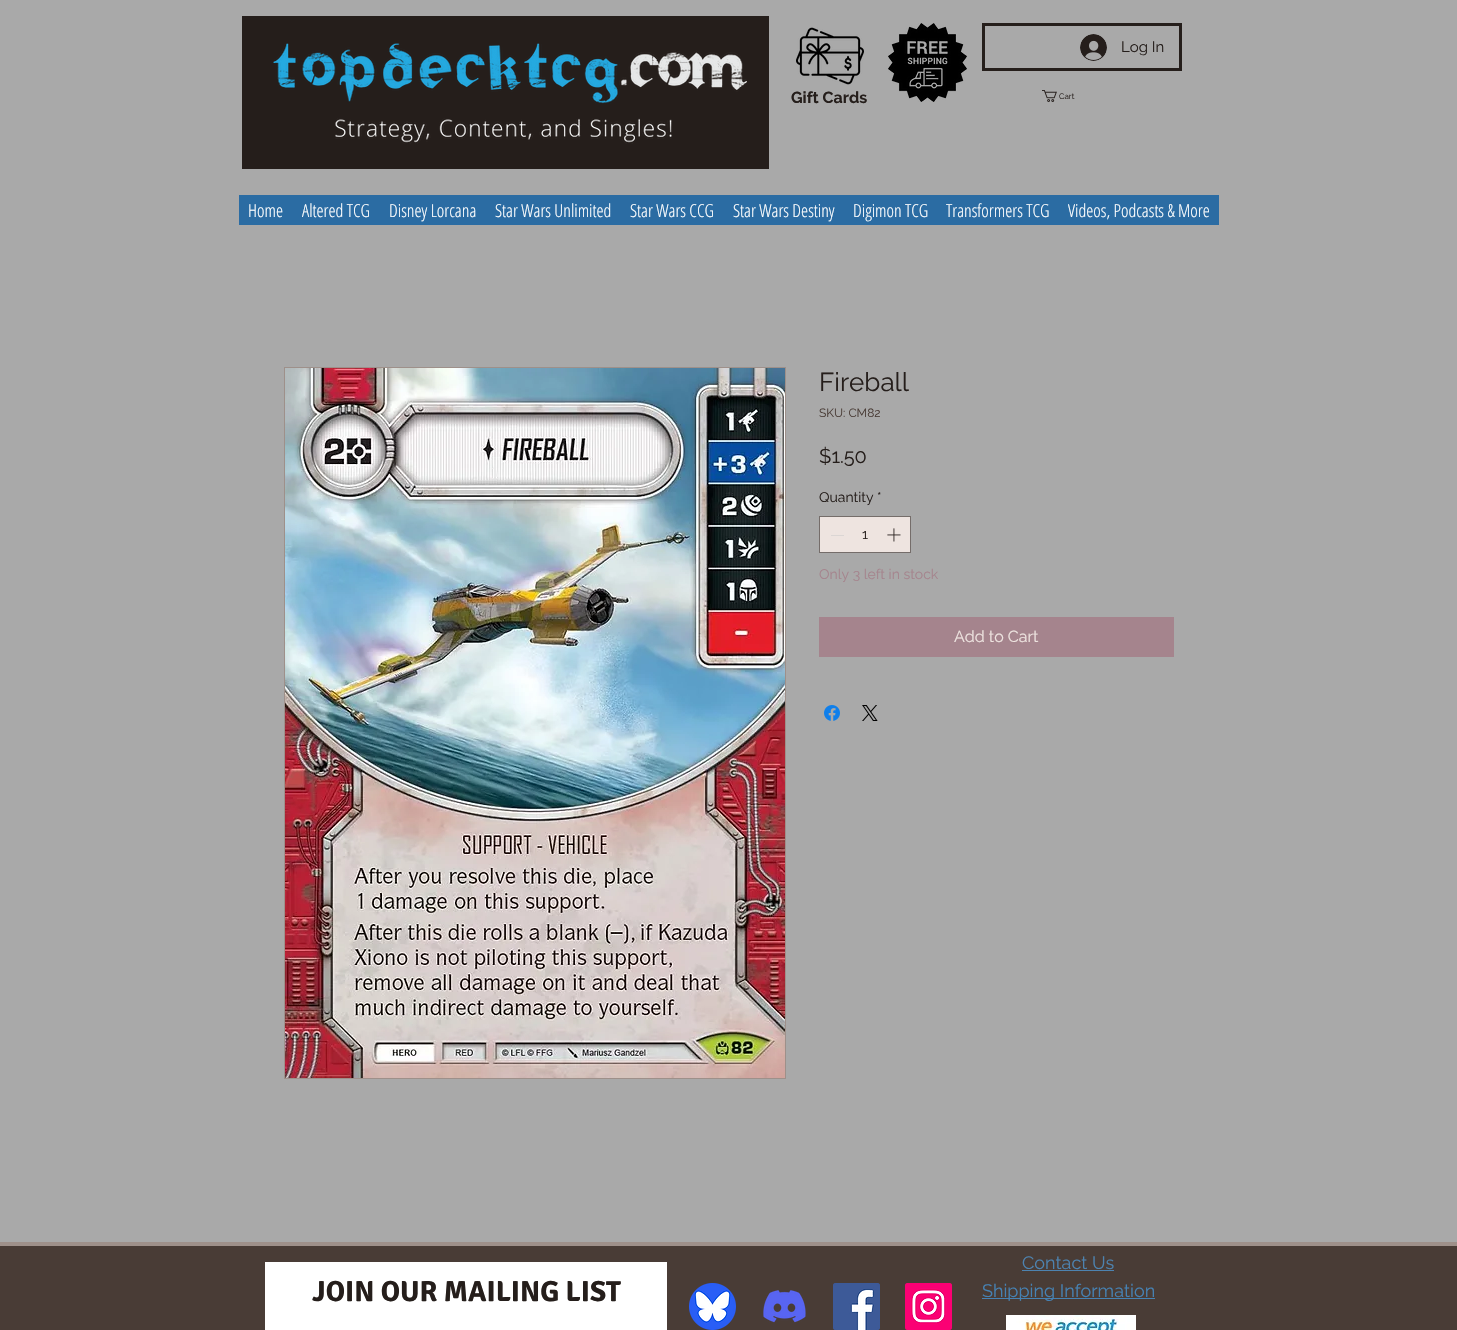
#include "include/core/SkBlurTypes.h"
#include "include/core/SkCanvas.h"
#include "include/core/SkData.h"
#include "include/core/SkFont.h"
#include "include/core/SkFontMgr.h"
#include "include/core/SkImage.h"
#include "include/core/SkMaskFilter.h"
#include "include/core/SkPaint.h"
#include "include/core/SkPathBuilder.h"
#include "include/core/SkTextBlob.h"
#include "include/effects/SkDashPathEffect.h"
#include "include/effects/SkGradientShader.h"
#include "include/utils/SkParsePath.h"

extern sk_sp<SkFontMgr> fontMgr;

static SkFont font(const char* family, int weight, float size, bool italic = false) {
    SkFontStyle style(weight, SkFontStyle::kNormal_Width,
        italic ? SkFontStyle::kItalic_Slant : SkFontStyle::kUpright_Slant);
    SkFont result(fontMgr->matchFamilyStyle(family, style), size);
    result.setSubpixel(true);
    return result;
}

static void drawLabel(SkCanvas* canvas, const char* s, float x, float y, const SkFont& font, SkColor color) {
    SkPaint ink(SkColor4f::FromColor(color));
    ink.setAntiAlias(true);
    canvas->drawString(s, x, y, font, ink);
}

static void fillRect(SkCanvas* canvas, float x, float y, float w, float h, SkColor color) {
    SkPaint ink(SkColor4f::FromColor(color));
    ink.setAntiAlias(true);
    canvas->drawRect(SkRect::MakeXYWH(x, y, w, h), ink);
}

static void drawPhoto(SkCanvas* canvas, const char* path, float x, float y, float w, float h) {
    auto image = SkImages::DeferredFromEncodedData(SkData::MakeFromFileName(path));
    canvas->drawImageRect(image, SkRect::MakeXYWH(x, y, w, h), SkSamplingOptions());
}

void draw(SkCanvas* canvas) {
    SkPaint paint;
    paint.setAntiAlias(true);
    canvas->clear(0xFFA9A9A9);
    fillRect(canvas, 242, 16, 527, 153, 0xFF251E1B);
    drawPhoto(canvas, "assets/img1.png", 273, 43, 474, 61);
    drawPhoto(canvas, "assets/img2.png", 335, 118, 337, 26);
    drawPhoto(canvas, "assets/img3.png", 796, 27, 68, 58);
    drawPhoto(canvas, "assets/img4.png", 888, 23, 79, 79);
    paint.setStroke(true);
    paint.setStrokeWidth(3);
    paint.setColor(0xFF251E1B);
    canvas->drawRect(SkRect::MakeXYWH(983.5f, 24.5f, 197, 45), paint);
    drawPhoto(canvas, "assets/img5.png", 1080, 34, 27, 27);
    SkFont font1 = font("Raleway", 400, 15);
    drawLabel(canvas, "Log In", 1121, 52, font1, 0xFF251E1B);
    SkFont font2 = font("Raleway", 700, 16);
    drawLabel(canvas, "Gift Cards", 791, 103, font2, 0xFF251E1B);
    drawPhoto(canvas, "assets/img6.png", 1042, 90, 15, 12);
    SkFont font3 = font("Raleway", 400, 8);
    drawLabel(canvas, "Cart", 1059, 99, font3, 0xFF251E1B);
    fillRect(canvas, 239, 195, 980, 30, 0xFF2B6CA3);
    SkFont font4 = font("Open Sans Condensed", 300, 18);
    drawLabel(canvas, "Home", 248, 217, font4, 0xFFFFFFFF);
    drawLabel(canvas, "Altered TCG", 302, 217, font4, 0xFFFFFFFF);
    drawLabel(canvas, "Disney Lorcana", 389, 217, font4, 0xFFFFFFFF);
    drawLabel(canvas, "Star Wars Unlimited", 495, 217, font4, 0xFFFFFFFF);
    drawLabel(canvas, "Star Wars CCG", 630, 217, font4, 0xFFFFFFFF);
    drawLabel(canvas, "Star Wars Destiny", 733, 217, font4, 0xFFFFFFFF);
    drawLabel(canvas, "Digimon TCG", 853, 217, font4, 0xFFFFFFFF);
    drawLabel(canvas, "Transformers TCG", 946, 217, font4, 0xFFFFFFFF);
    drawLabel(canvas, "Videos, Podcasts & More", 1068, 217, font4, 0xFFFFFFFF);
    paint.setStrokeWidth(1);
    paint.setColor(0xFF9E908A);
    canvas->drawRect(SkRect::MakeXYWH(284.5f, 367.5f, 501, 711), paint);
    drawPhoto(canvas, "assets/img7.png", 285, 368, 500, 710);
    SkFont font5 = font("Raleway", 400, 26);
    drawLabel(canvas, "Fireball", 819, 391, font5, 0xFF251E1B);
    SkFont font6 = font("Raleway", 400, 12);
    drawLabel(canvas, "SKU: CM82", 819, 417, font6, 0xFF493C36);
    SkFont font7 = font("Raleway", 400, 20);
    drawLabel(canvas, "$1.50", 819, 463, font7, 0xFF251E1B);
    SkFont font8 = font("Raleway", 400, 14);
    drawLabel(canvas, "Quantity", 819, 502, font8, 0xFF251E1B);
    drawLabel(canvas, "*", 877, 502, font8, 0xFF251E1B);
    paint.setStroke(false);
    paint.setColor(0xFFEEE4E0);
    canvas->drawRect(SkRect::MakeXYWH(819.5f, 516.5f, 91, 36), paint);
    paint.setStroke(true);
    paint.setColor(0xFF756D6A);
    canvas->drawRect(SkRect::MakeXYWH(819.5f, 516.5f, 91, 36), paint);
    fillRect(canvas, 831, 535, 13, 1, 0xFFDBD6D4);
    drawLabel(canvas, "1", 862, 539, font8, 0xFF251E1B);
    drawPhoto(canvas, "assets/img8.png", 887, 528, 14, 14);
    drawLabel(canvas, "Only 3 left in stock", 819, 579, font8, 0xFFA5848D);
    fillRect(canvas, 819, 617, 355, 40, 0xFFA5848D);
    SkFont font9 = font("Raleway", 400, 16);
    drawLabel(canvas, "Add to Cart", 954, 642, font9, 0xFFEEE4E0);
    drawPhoto(canvas, "assets/img9.png", 824, 705, 16, 16);
    drawPhoto(canvas, "assets/img10.png", 862, 705, 16, 16);
    fillRect(canvas, 0, 1246, 1457, 84, 0xFF493C36);
    fillRect(canvas, 0, 1242, 1457, 4, 0xFF9E908A);
    SkFont font10 = font("Raleway", 400, 18);
    drawLabel(canvas, "Contact Us", 1022, 1269, font10, 0xFF4D83B0);
    fillRect(canvas, 1022, 1270, 92, 1, 0xFF4D83B0);
    fillRect(canvas, 265, 1262, 402, 68, 0xFFFFFFFF);
    SkFont font11 = font("Signika", 700, 29);
    drawLabel(canvas, "JOIN OUR MAILING LIST", 312, 1301, font11, 0xFF251E1B);
    drawPhoto(canvas, "assets/img11.png", 689, 1283, 47, 47);
    drawPhoto(canvas, "assets/img12.png", 763, 1290, 43, 33);
    drawPhoto(canvas, "assets/img13.png", 833, 1283, 47, 47);
    drawPhoto(canvas, "assets/img14.png", 905, 1283, 47, 47);
    fillRect(canvas, 982, 1298, 173, 1, 0xFF4682B4);
    drawLabel(canvas, "Shipping Information", 982, 1297, font10, 0xFF4682B4);
    drawPhoto(canvas, "assets/img15.png", 1006, 1315, 130, 15);
}
